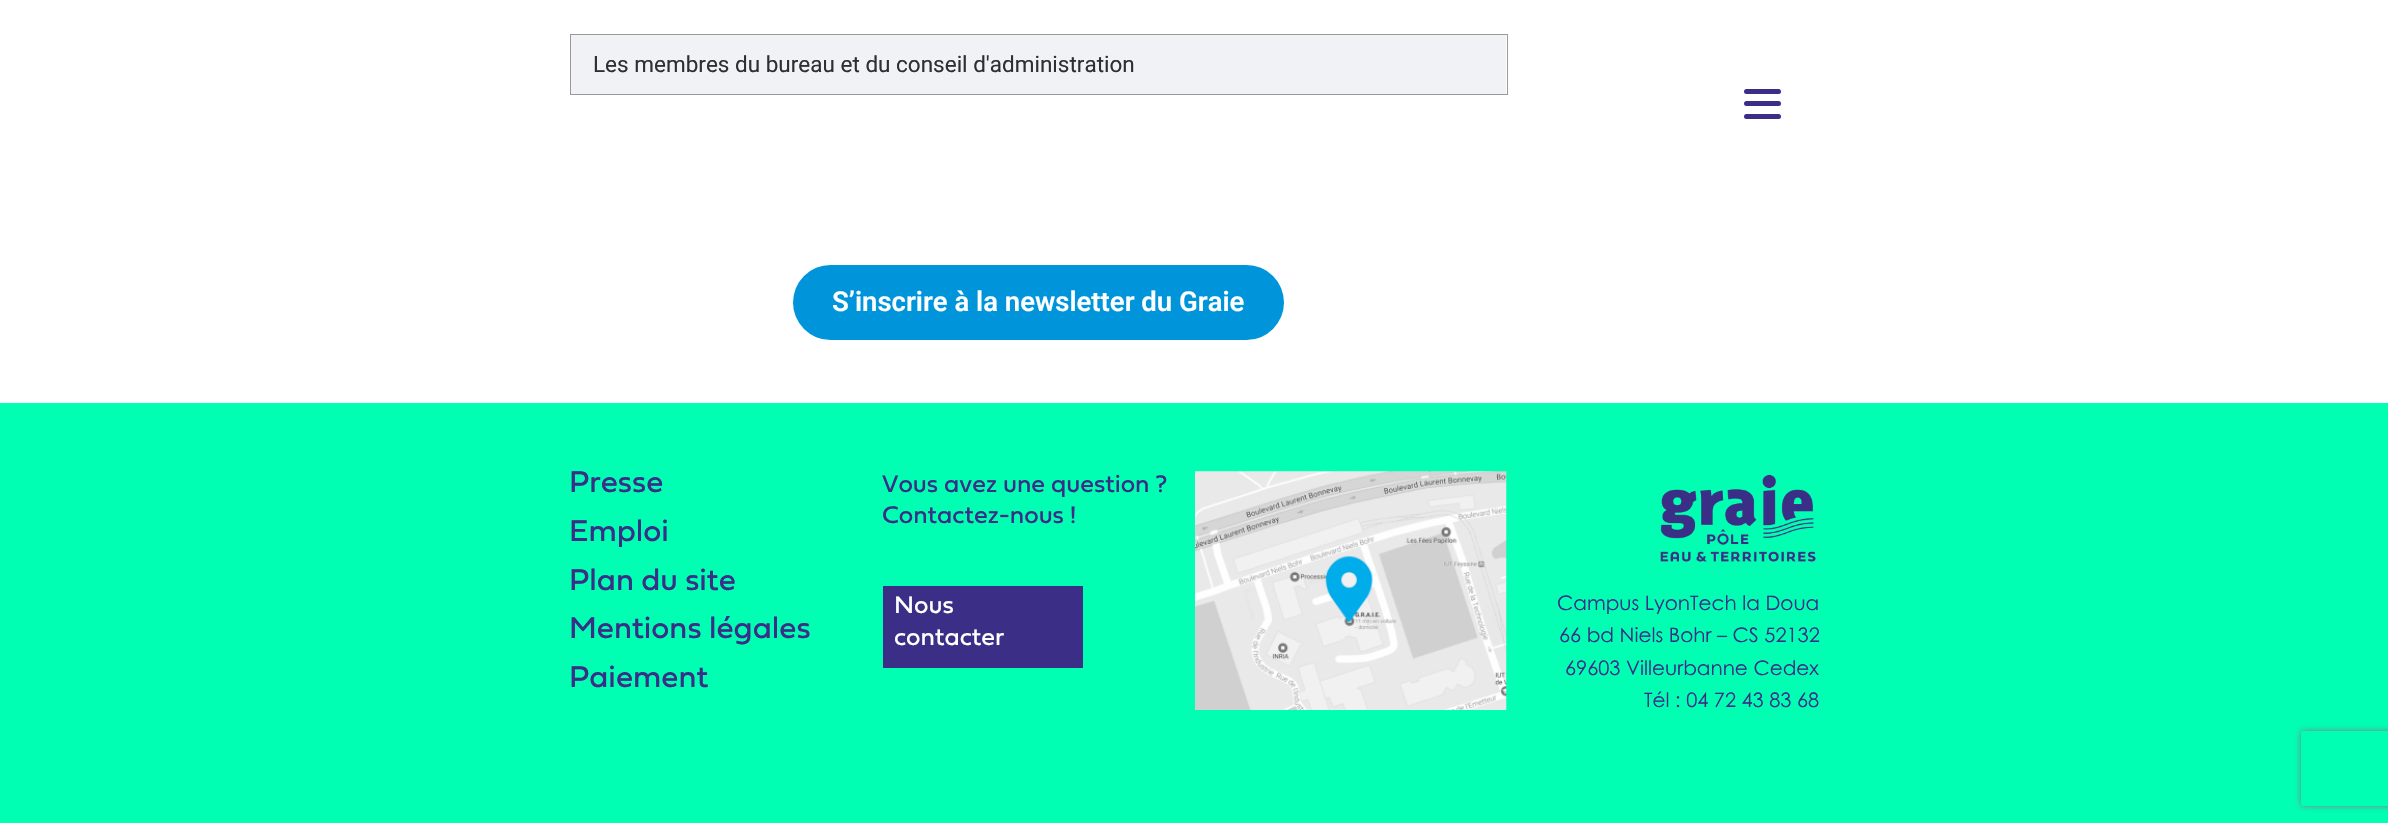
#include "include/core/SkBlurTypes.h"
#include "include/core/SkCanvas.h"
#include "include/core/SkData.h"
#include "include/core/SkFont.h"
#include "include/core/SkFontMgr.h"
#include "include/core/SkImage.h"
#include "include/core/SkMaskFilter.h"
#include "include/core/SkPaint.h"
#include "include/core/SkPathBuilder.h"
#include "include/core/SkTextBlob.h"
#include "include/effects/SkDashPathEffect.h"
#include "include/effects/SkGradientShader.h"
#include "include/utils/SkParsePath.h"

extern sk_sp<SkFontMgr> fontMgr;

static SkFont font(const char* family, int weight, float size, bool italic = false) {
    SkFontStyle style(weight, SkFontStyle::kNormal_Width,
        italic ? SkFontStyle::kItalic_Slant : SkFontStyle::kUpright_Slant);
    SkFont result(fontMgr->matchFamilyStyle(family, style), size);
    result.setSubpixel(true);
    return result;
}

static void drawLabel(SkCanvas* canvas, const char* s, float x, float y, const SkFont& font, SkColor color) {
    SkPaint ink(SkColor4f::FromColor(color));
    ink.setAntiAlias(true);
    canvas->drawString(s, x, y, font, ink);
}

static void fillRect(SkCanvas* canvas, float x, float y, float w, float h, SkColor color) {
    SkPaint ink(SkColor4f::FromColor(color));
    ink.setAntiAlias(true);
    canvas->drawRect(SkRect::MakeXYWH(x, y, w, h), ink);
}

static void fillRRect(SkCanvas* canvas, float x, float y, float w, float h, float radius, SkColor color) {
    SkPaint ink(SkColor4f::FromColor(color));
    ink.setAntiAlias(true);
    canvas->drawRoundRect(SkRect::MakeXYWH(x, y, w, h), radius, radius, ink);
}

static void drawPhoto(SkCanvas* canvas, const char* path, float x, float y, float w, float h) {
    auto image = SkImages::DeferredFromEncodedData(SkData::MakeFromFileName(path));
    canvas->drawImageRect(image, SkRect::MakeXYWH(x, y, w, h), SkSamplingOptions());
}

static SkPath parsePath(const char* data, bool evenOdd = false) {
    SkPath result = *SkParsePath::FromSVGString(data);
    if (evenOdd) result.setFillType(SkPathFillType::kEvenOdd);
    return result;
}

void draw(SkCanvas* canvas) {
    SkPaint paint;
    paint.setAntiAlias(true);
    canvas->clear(0xFFFFFFFF);
    paint.setStroke(true);
    paint.setStrokeWidth(1);
    paint.setColor(0xFF999999);
    canvas->drawRect(SkRect::MakeXYWH(570.5f, 34.5f, 937, 60), paint);
    fillRect(canvas, 571, 35, 935, 59, 0xFFF1F2F6);
    SkFont font1 = font("Roboto", 400, 22.5f);
    drawLabel(canvas, "Les membres du bureau et du conseil d'administration", 593, 72, font1, 0xFF2C2F34);
    fillRRect(canvas, 793, 265, 491, 75, 37.5f, 0xFF0095DB);
    SkFont font2 = font("Roboto", 600, 27.5f);
    drawLabel(canvas, "S’inscrire à la newsletter du Graie", 832, 311, font2, 0xFFFFFFFF);
    fillRect(canvas, 0, 403, 2388, 420, 0xFF00FFB2);
    SkFont font3 = font("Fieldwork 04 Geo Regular", 400, 31.25f);
    drawLabel(canvas, "Presse", 569, 492, font3, 0xFF3A2E87);
    drawLabel(canvas, "Emploi", 569, 541, font3, 0xFF3A2E87);
    drawLabel(canvas, "Plan du site", 569, 590, font3, 0xFF3A2E87);
    drawLabel(canvas, "Mentions légales", 569, 638, font3, 0xFF3A2E87);
    drawLabel(canvas, "Paiement", 569, 687, font3, 0xFF3A2E87);
    SkFont font4 = font("Fieldwork 04 Geo Regular", 400, 25);
    drawLabel(canvas, "Vous avez une question ?", 882, 492, font4, 0xFF3A2E87);
    drawLabel(canvas, "Contactez-nous !", 882, 523, font4, 0xFF3A2E87);
    fillRect(canvas, 883, 586, 200, 82, 0xFF3A2E87);
    drawLabel(canvas, "Nous", 894, 613, font4, 0xFFFFFFFF);
    drawLabel(canvas, "contacter", 894, 645, font4, 0xFFFFFFFF);
    drawPhoto(canvas, "assets/img1.png", 1195, 471, 312, 239);
    drawPhoto(canvas, "assets/img2.png", 1660, 474, 156, 88);
    SkFont font5 = font("Century Gothic", 400, 20);
    drawLabel(canvas, "Campus LyonTech la Doua", 1557, 610, font5, 0xFF3A2E87);
    drawLabel(canvas, "66 bd Niels Bohr – CS 52132", 1559, 642, font5, 0xFF3A2E87);
    drawLabel(canvas, "69603 Villeurbanne Cedex", 1565, 675, font5, 0xFF3A2E87);
    drawLabel(canvas, "Tél : 04 72 43 83 68", 1644, 707, font5, 0xFF3A2E87);
    fillRRect(canvas, 1744, 89, 37, 5, 2.5f, 0xFF3A2E87);
    fillRRect(canvas, 1744, 101, 37, 5, 2.5f, 0xFF3A2E87);
    fillRRect(canvas, 1744, 114, 37, 5, 2.5f, 0xFF3A2E87);
    canvas->save();
    canvas->clipPath(parsePath("M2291 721H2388V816H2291ZM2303.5 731H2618.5C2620 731 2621 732 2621 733.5V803.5C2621 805 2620 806 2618.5 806H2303.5C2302 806 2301 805 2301 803.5V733.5C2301 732 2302 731 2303.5 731Z", true), true);
    paint.setStroke(false);
    paint.setColor(0xFF808080);
    paint.setMaskFilter(SkMaskFilter::MakeBlur(kNormal_SkBlurStyle, 3));
    canvas->drawRoundRect(SkRect::MakeXYWH(2301, 731, 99, 75), 2.5f, 2.5f, paint);
    paint.setMaskFilter(nullptr);
    canvas->restore();
}
